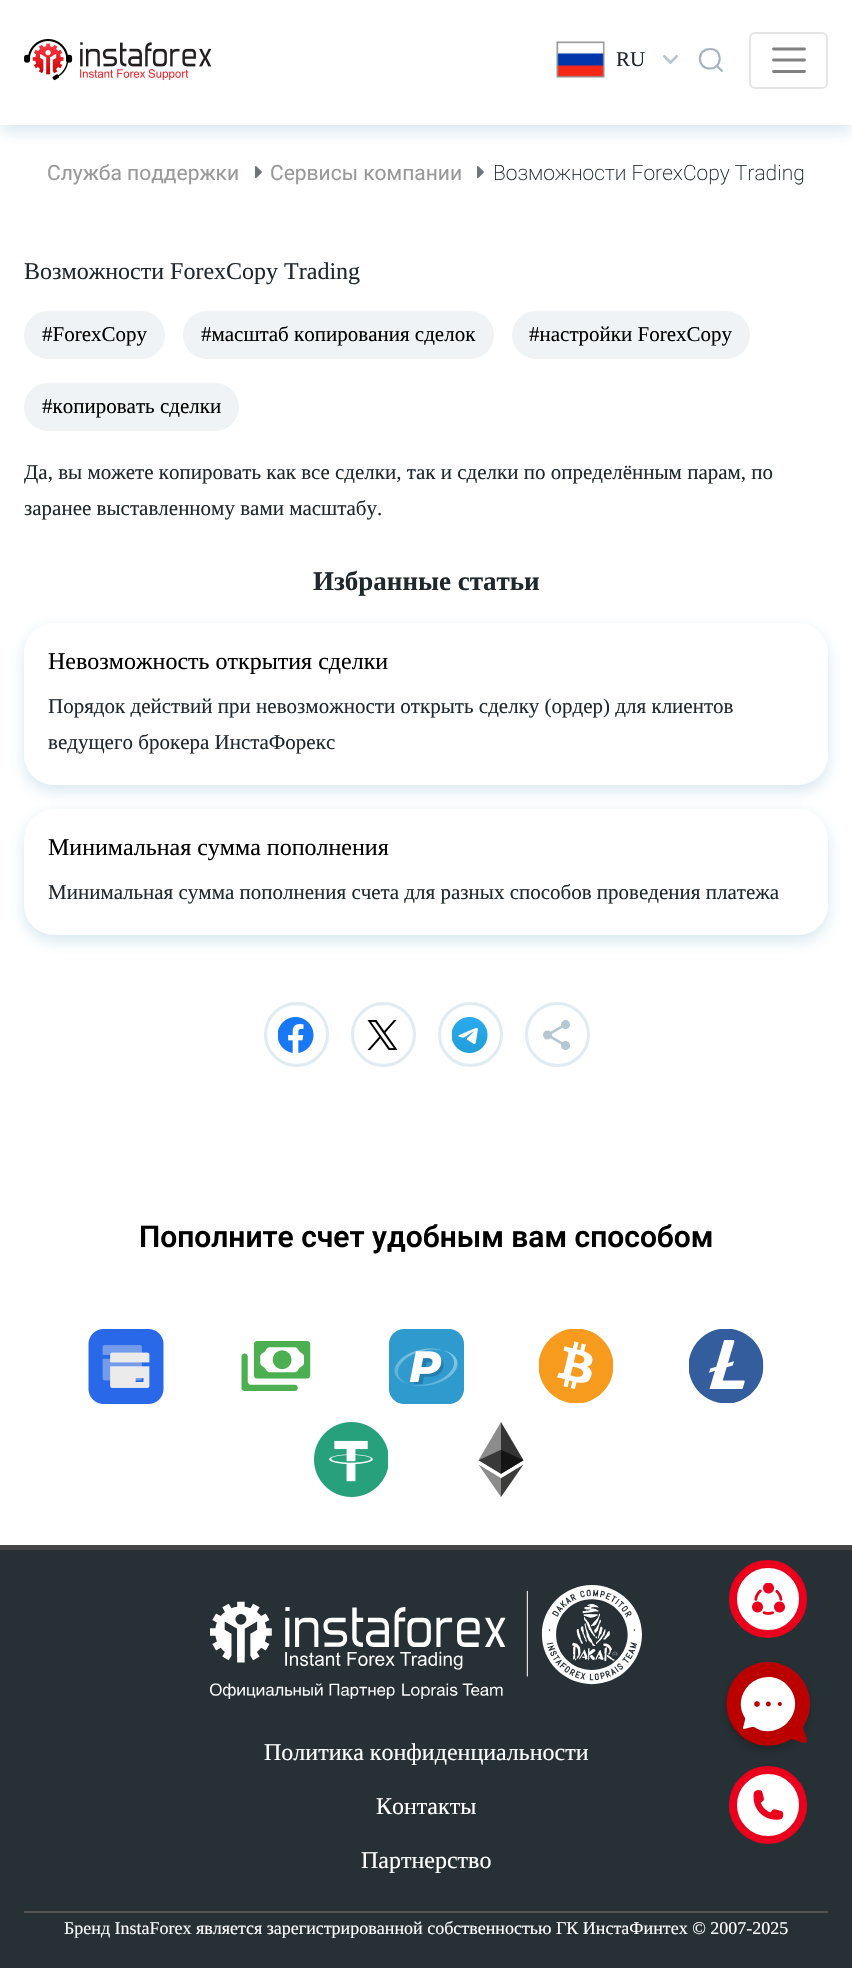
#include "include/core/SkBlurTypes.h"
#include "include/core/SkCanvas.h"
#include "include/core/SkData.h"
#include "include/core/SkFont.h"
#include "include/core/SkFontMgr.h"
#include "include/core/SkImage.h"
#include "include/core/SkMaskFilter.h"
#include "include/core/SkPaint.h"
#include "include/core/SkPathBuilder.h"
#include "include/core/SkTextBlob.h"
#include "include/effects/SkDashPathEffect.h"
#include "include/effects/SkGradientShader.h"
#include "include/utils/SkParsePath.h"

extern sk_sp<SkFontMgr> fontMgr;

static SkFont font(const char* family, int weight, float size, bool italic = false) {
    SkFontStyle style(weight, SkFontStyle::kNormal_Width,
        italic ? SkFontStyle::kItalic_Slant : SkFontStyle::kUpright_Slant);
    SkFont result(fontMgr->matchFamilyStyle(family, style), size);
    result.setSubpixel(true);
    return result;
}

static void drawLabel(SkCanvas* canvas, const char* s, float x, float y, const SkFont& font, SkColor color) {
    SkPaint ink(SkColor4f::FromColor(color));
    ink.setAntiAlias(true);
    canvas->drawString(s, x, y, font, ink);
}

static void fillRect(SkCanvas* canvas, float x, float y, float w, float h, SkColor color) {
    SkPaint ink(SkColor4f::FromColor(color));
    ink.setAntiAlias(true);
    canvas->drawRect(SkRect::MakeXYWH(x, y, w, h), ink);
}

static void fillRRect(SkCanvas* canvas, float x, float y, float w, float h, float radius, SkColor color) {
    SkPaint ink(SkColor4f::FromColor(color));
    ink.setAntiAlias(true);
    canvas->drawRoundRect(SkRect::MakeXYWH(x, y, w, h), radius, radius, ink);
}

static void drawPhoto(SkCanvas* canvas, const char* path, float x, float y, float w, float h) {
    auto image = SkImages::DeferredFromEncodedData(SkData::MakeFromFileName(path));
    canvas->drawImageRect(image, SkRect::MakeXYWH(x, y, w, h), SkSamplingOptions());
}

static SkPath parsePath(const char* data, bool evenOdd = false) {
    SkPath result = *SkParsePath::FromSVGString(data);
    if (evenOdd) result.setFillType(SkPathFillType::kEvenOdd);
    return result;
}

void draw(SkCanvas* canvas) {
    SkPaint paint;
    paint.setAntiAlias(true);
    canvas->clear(0xFFFFFFFF);
    canvas->save();
    canvas->clipPath(parsePath("M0 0H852V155H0ZM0-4H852V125H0Z", true), true);
    paint.setColor(0x333585AD);
    paint.setMaskFilter(SkMaskFilter::MakeBlur(kNormal_SkBlurStyle, 7.5f));
    canvas->drawRect(SkRect::MakeXYWH(0, 2, 852, 129), paint);
    paint.setMaskFilter(nullptr);
    canvas->restore();
    drawPhoto(canvas, "assets/img1.png", 24, 39, 188, 42);
    drawPhoto(canvas, "assets/img2.png", 556, 41, 49, 37);
    SkFont font1 = font("Liberation Serif", 400, 21);
    drawLabel(canvas, "RU", 616, 66, font1, 0xFF1E282D);
    drawPhoto(canvas, "assets/img3.png", 663, 55, 15, 9);
    paint.setStroke(true);
    paint.setStrokeWidth(2.2f);
    paint.setStrokeCap(SkPaint::kRound_Cap);
    paint.setStrokeJoin(SkPaint::kRound_Join);
    paint.setColor(0xFFA3B4BE);
    canvas->drawPath(parsePath("M710 68.5C723 68.5 723 48.5 710 49C696.5 49 696.5 68.5 710 68.5ZM722 71L717 66"), paint);
    paint.setStrokeWidth(2);
    paint.setStrokeCap(SkPaint::kButt_Cap);
    paint.setStrokeJoin(SkPaint::kMiter_Join);
    paint.setColor(0xFFE6E6E6);
    canvas->drawRoundRect(SkRect::MakeXYWH(750, 33, 77, 55), 5, 5, paint);
    paint.setStrokeWidth(2.8f);
    paint.setStrokeCap(SkPaint::kRound_Cap);
    paint.setColor(0xFF808080);
    canvas->drawPath(parsePath("M773.5 49H804.5M773.5 60H804.5M773.5 71.5H804.5"), paint);
    SkFont font2 = font("Roboto", 400, 21);
    drawLabel(canvas, "Служба поддержки", 47, 180, font2, 0xFF999999);
    drawPhoto(canvas, "assets/img4.png", 255, 166, 7, 13);
    drawLabel(canvas, "Сервисы компании", 270, 180, font2, 0xFF999999);
    drawPhoto(canvas, "assets/img4.png", 477, 166, 7, 13);
    SkFont font3 = font("Roboto", 200, 21);
    drawLabel(canvas, "Возможности ForexCopy Trading", 493, 180, font3, 0xFF1E282D);
    SkFont font4 = font("Liberation Serif", 400, 24);
    drawLabel(canvas, "Возможности ForexCopy Trading", 24, 279, font4, 0xFF1E282D);
    fillRRect(canvas, 24, 311, 141, 48, 24, 0xFFEFF3F5);
    drawLabel(canvas, "#ForexCopy", 42, 341, font1, 0xFF000000);
    fillRRect(canvas, 183, 311, 311, 48, 24, 0xFFEFF3F5);
    drawLabel(canvas, "#масштаб копирования сделок", 201, 341, font1, 0xFF000000);
    fillRRect(canvas, 512, 311, 238, 48, 24, 0xFFEFF3F5);
    drawLabel(canvas, "#настройки ForexCopy", 529, 341, font1, 0xFF000000);
    fillRRect(canvas, 24, 383, 215, 48, 24, 0xFFEFF3F5);
    drawLabel(canvas, "#копировать сделки", 42, 413, font1, 0xFF000000);
    drawLabel(canvas, "Да, вы можете копировать как все сделки, так и сделки по определённым парам, по", 24, 479, font1, 0xFF1E282D);
    drawLabel(canvas, "заранее выставленному вами масштабу.", 24, 515, font1, 0xFF1E282D);
    SkFont font5 = font("Liberation Serif", 700, 27);
    drawLabel(canvas, "Избранные статьи", 313, 590, font5, 0xFF1E282D);
    paint.setStroke(false);
    paint.setColor(0x333585AD);
    paint.setMaskFilter(SkMaskFilter::MakeBlur(kNormal_SkBlurStyle, 7.5f));
    canvas->drawRoundRect(SkRect::MakeXYWH(24, 629, 804, 162), 30, 30, paint);
    paint.setMaskFilter(nullptr);
    fillRRect(canvas, 24, 623, 804, 162, 30, 0xFFFFFFFF);
    drawLabel(canvas, "Невозможность открытия сделки", 48, 669, font4, 0xFF000000);
    drawLabel(canvas, "Порядок действий при невозможности открыть сделку (ордер) для клиентов", 48, 713, font1, 0xFF1E282D);
    drawLabel(canvas, "ведущего брокера ИнстаФорекс", 48, 749, font1, 0xFF1E282D);
    paint.setMaskFilter(SkMaskFilter::MakeBlur(kNormal_SkBlurStyle, 7.5f));
    canvas->drawRoundRect(SkRect::MakeXYWH(24, 815, 804, 126), 30, 30, paint);
    paint.setMaskFilter(nullptr);
    fillRRect(canvas, 24, 809, 804, 126, 30, 0xFFFFFFFF);
    drawLabel(canvas, "Минимальная сумма пополнения", 48, 855, font4, 0xFF000000);
    drawLabel(canvas, "Минимальная сумма пополнения счета для разных способов проведения платежа", 48, 899, font1, 0xFF1E282D);
    paint.setStroke(true);
    paint.setStrokeWidth(3);
    paint.setStrokeCap(SkPaint::kButt_Cap);
    paint.setColor(0xFFE0EBF2);
    canvas->drawCircle(296.5f, 1034.5f, 31, paint);
    drawPhoto(canvas, "assets/img5.png", 278, 1017, 36, 36);
    canvas->drawCircle(383.5f, 1034.5f, 31, paint);
    drawPhoto(canvas, "assets/img6.png", 367, 1020, 31, 30);
    canvas->drawCircle(470.5f, 1034.5f, 31, paint);
    drawPhoto(canvas, "assets/img7.png", 452, 1017, 36, 36);
    canvas->drawCircle(557.5f, 1034.5f, 31, paint);
    drawPhoto(canvas, "assets/img8.png", 543, 1020, 27, 30);
    SkFont font6 = font("Roboto", 600, 30);
    drawLabel(canvas, "Пополните счет удобным вам способом", 139, 1247, font6, 0xFF000000);
    drawPhoto(canvas, "assets/img9.png", 88, 1329, 76, 75);
    drawPhoto(canvas, "assets/img10.png", 241, 1341, 70, 50);
    drawPhoto(canvas, "assets/img11.png", 389, 1329, 75, 75);
    drawPhoto(canvas, "assets/img12.png", 539, 1329, 75, 75);
    drawPhoto(canvas, "assets/img13.png", 689, 1329, 75, 75);
    drawPhoto(canvas, "assets/img14.png", 314, 1422, 74, 75);
    drawPhoto(canvas, "assets/img15.png", 478, 1422, 46, 75);
    fillRect(canvas, 0, 1550, 852, 418, 0xFF273035);
    paint.setStroke(false);
    paint.setColor(0xFFFFFFFF);
    canvas->drawCircle(768, 1599, 35, paint);
    paint.setStroke(true);
    paint.setStrokeWidth(8);
    paint.setColor(0xFFEA001C);
    canvas->drawCircle(768, 1599, 35, paint);
    drawPhoto(canvas, "assets/img16.png", 752, 1583, 33, 32);
    fillRect(canvas, 0, 1545, 852, 5, 0xFF444444);
    drawPhoto(canvas, "assets/img17.png", 210, 1585, 432, 114);
    drawLabel(canvas, "Политика конфиденциальности", 264, 1760, font4, 0xFFFFFFFF);
    drawLabel(canvas, "Контакты", 376, 1814, font4, 0xFFFFFFFF);
    drawLabel(canvas, "Партнерство", 361, 1868, font4, 0xFFFFFFFF);
    paint.setStroke(false);
    paint.setColor(0x33000000);
    paint.setMaskFilter(SkMaskFilter::MakeBlur(kNormal_SkBlurStyle, 4.5f));
    canvas->drawRoundRect(SkRect::MakeXYWH(726, 1667, 84, 84), 42, 42, paint);
    paint.setMaskFilter(nullptr);
    {
        const SkColor colors[] = {0xFF660606, 0xFFCC0D0D};
        const float stops[] = {0, 1};
        const SkPoint ends[] = {{726, 1746}, {810, 1662}};
        paint.setShader(SkGradientShader::MakeLinear(ends, colors, stops, 2, SkTileMode::kClamp));
        paint.setAlpha(255);
    }
    canvas->drawCircle(768, 1704, 42, paint);
    paint.setShader(nullptr);
    paint.setColor(0xFFBB0000);
    canvas->drawPath(parsePath("M798 1675C781 1658 754 1658 738 1676C723 1692 723 1717 739 1733C752 1747 773 1749 789 1740C790 1739 791 1739 792 1739L804 1743C806 1743 807 1742 807 1740L803 1728C803 1727 803 1726 804 1725C813 1709 811 1688 798 1675Z"), paint);
    paint.setColor(0xFFFFFFFF);
    canvas->drawPath(parsePath("M787 1723C798 1712 798 1695 786 1684C776 1674 759 1675 749 1685C740 1694 738 1707 745 1718V1720L743 1728C743 1728 743 1729 744 1729L752 1727H754C764 1734 778 1732 787 1723Z"), paint);
    drawPhoto(canvas, "assets/img18.png", 754, 1701, 28, 6);
    canvas->drawCircle(768, 1805, 35, paint);
    paint.setStroke(true);
    paint.setColor(0xFFEA001C);
    canvas->drawCircle(768, 1805, 35, paint);
    drawPhoto(canvas, "assets/img19.png", 753, 1790, 31, 30);
    fillRect(canvas, 24, 1911, 804, 2, 0xFF535353);
    SkFont font7 = font("Liberation Serif", 400, 18);
    drawLabel(canvas, "Бренд InstaForex", 64, 1934, font7, 0xFFF8F9FA);
    drawLabel(canvas, "является зарегистрированной собственностью ГК ИнстаФинтех © 2007-2025", 196, 1934, font7, 0xFFFFFFFF);
}
